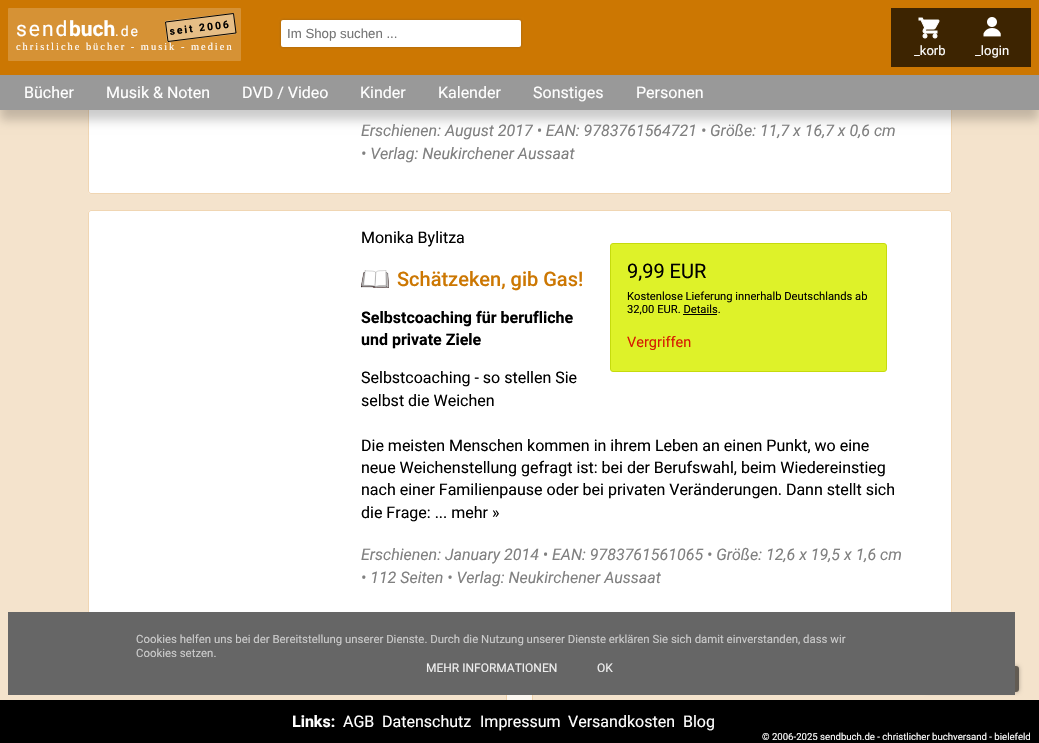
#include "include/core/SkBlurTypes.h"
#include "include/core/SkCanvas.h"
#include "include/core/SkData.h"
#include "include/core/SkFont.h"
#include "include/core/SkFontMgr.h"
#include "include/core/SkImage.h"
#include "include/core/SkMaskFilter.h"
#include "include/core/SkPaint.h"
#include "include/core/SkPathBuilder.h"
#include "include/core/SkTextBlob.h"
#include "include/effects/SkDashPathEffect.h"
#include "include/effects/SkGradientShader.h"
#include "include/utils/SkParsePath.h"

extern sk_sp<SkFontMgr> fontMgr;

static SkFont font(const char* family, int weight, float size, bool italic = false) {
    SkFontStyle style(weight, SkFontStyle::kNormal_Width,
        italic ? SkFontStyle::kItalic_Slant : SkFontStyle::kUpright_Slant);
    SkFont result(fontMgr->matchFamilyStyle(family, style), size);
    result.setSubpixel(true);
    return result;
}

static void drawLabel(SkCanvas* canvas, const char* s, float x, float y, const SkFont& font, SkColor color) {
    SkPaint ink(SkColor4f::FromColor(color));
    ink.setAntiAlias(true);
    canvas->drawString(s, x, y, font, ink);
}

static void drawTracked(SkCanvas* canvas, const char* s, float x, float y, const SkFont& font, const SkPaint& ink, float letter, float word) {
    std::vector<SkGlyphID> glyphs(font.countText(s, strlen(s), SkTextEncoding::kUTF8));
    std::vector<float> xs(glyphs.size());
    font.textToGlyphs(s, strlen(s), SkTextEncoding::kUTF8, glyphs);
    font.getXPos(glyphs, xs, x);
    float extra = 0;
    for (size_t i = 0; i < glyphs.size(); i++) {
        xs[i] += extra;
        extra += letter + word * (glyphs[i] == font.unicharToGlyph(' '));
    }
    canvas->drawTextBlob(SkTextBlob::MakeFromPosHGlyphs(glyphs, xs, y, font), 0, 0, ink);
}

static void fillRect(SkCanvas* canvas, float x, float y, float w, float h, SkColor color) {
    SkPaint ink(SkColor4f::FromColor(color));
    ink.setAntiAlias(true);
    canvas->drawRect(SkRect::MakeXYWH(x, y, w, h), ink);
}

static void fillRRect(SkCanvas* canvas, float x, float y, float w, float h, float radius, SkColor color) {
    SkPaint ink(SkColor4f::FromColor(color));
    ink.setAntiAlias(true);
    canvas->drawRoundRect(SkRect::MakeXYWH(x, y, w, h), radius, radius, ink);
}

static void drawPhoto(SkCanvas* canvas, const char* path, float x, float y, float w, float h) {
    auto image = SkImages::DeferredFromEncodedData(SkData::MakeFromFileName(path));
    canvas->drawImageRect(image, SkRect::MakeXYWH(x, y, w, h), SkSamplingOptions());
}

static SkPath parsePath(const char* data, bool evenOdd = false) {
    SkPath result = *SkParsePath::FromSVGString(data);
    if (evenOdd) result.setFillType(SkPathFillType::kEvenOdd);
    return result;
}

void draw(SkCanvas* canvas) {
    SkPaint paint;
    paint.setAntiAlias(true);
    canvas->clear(0xFFF4E3CC);
    fillRRect(canvas, 88, -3, 864, 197, 3, 0xFFFFFFFF);
    paint.setStroke(true);
    paint.setStrokeWidth(1);
    paint.setColor(0x4DCC7702);
    canvas->drawRoundRect(SkRect::MakeXYWH(88.5f, -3.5f, 863, 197), 2.5f, 2.5f, paint);
    paint.setStroke(false);
    paint.setColor(0x33000000);
    paint.setMaskFilter(SkMaskFilter::MakeBlur(kNormal_SkBlurStyle, 5));
    canvas->drawRect(SkRect::MakeXYWH(0, 85, 1039, 35), paint);
    paint.setMaskFilter(nullptr);
    fillRect(canvas, 0, 0, 1039, 75, 0xFFCC7702);
    fillRRect(canvas, 8, 8, 233, 53, 1, 0xFFD69235);
    SkFont font1 = font("Roboto", 400, 21);
    paint.setColor(0xFFFFFFFF);
    drawTracked(canvas, "send", 16, 36, font1, paint, 2, 0);
    SkFont font2 = font("Roboto", 700, 21);
    drawLabel(canvas, "buch", 69, 36, font2, 0xFFFFFFFF);
    SkFont font3 = font("Roboto", 400, 14);
    drawTracked(canvas, ".de", 115, 36, font3, paint, 2, 0);
    paint.setColor(0xFFE6BE86);
    canvas->drawPath(parsePath("M165 21L234 13L236 34L167 42Z"), paint);
    SkFont font4 = font("Liberation Serif", 400, 10.4f);
    paint.setColor(0xFFFFFFFF);
    drawTracked(canvas, "christliche bücher - musik - medien", 16, 50, font4, paint, 2, 0);
    paint.setStroke(true);
    paint.setColor(0xFF000000);
    canvas->drawPath(parsePath("M165.5 22L233.5 13.5L236 33L168 41.5Z"), paint);
    SkFont font5 = font("Roboto", 700, 10.4f);
    paint.setStroke(false);
    canvas->save();
    canvas->rotate(-7, 170, 35);
    drawTracked(canvas, "seit 2006", 170, 35, font5, paint, 2, 0);
    canvas->restore();
    paint.setColor(0x4D333333);
    paint.setMaskFilter(SkMaskFilter::MakeBlur(kNormal_SkBlurStyle, 1.5f));
    canvas->drawRoundRect(SkRect::MakeXYWH(281, 20, 240, 27), 2, 2, paint);
    paint.setMaskFilter(nullptr);
    fillRRect(canvas, 281, 20, 240, 27, 2, 0xFFFFFFFF);
    SkFont font6 = font("Liberation Sans", 400, 13.25f);
    drawLabel(canvas, "Im Shop suchen ...", 287, 38, font6, 0xFF757575);
    fillRect(canvas, 891, 8, 140, 59, 0xFF3D2401);
    drawPhoto(canvas, "assets/img1.png", 918, 17, 22, 22);
    SkFont font7 = font("Roboto", 400, 13);
    drawLabel(canvas, "_korb", 914, 55, font7, 0xFFFFFFFF);
    drawPhoto(canvas, "assets/img2.png", 983, 17, 18, 20);
    drawLabel(canvas, "_login", 975, 55, font7, 0xFFFFFFFF);
    fillRect(canvas, 0, 75, 1039, 35, 0xFF999999);
    SkFont font8 = font("Roboto", 400, 16);
    drawLabel(canvas, "Bücher", 24, 98, font8, 0xFFFFFFFF);
    drawLabel(canvas, "Musik & Noten", 106, 98, font8, 0xFFFFFFFF);
    drawLabel(canvas, "DVD / Video", 242, 98, font8, 0xFFFFFFFF);
    drawLabel(canvas, "Kinder", 360, 98, font8, 0xFFFFFFFF);
    drawLabel(canvas, "Kalender", 438, 98, font8, 0xFFFFFFFF);
    drawLabel(canvas, "Sonstiges", 533, 98, font8, 0xFFFFFFFF);
    drawLabel(canvas, "Personen", 636, 98, font8, 0xFFFFFFFF);
    SkFont font9 = font("Roboto", 400, 16, true);
    drawLabel(canvas, "Erschienen: August 2017 • EAN: 9783761564721 • Größe: 11,7 x 16,7 x 0,6 cm", 361, 136, font9, 0xFF808080);
    drawLabel(canvas, "• Verlag: Neukirchener Aussaat", 361, 159, font9, 0xFF808080);
    fillRRect(canvas, 88, 210, 864, 408, 3, 0xFFFFFFFF);
    paint.setStroke(true);
    paint.setColor(0x4DCC7702);
    canvas->drawRoundRect(SkRect::MakeXYWH(88.5f, 210.5f, 863, 407), 2.5f, 2.5f, paint);
    drawLabel(canvas, "Monika Bylitza", 361, 243, font8, 0xFF000000);
    drawPhoto(canvas, "assets/img3.png", 361, 270, 28, 18);
    SkFont font10 = font("Roboto", 500, 20);
    drawLabel(canvas, "Schätzeken, gib Gas!", 397, 286, font10, 0xFFCC7702);
    paint.setStroke(false);
    paint.setColor(0xFFDEF229);
    canvas->drawRoundRect(SkRect::MakeXYWH(610.5f, 243.5f, 276, 128), 2.5f, 2.5f, paint);
    paint.setStroke(true);
    paint.setColor(0xFFC6DB0D);
    canvas->drawRoundRect(SkRect::MakeXYWH(610.5f, 243.5f, 276, 128), 2.5f, 2.5f, paint);
    SkFont font11 = font("Roboto", 400, 20);
    drawLabel(canvas, "9,99 EUR", 627, 278, font11, 0xFF000000);
    SkFont font12 = font("Roboto", 400, 11.2f);
    drawLabel(canvas, "Kostenlose Lieferung innerhalb Deutschlands ab", 627, 300, font12, 0xFF000000);
    drawLabel(canvas, "32,00 EUR. Details.", 627, 313, font12, 0xFF000000);
    fillRect(canvas, 683, 314, 34, 1, 0xFF000000);
    SkFont font13 = font("Roboto", 400, 14.5f);
    drawLabel(canvas, "Vergriffen", 627, 347, font13, 0xFFD61B00);
    SkFont font14 = font("Roboto", 700, 16);
    drawLabel(canvas, "Selbstcoaching für berufliche", 361, 323, font14, 0xFF000000);
    drawLabel(canvas, "und private Ziele", 361, 345, font14, 0xFF000000);
    drawLabel(canvas, "Selbstcoaching - so stellen Sie", 361, 383, font8, 0xFF000000);
    drawLabel(canvas, "selbst die Weichen", 361, 406, font8, 0xFF000000);
    drawLabel(canvas, "Die meisten Menschen kommen in ihrem Leben an einen Punkt, wo eine", 361, 451, font8, 0xFF000000);
    drawLabel(canvas, "neue Weichenstellung gefragt ist: bei der Berufswahl, beim Wiedereinstieg", 361, 473, font8, 0xFF000000);
    drawLabel(canvas, "nach einer Familienpause oder bei privaten Veränderungen. Dann stellt sich", 361, 495, font8, 0xFF000000);
    drawLabel(canvas, "die Frage: ... mehr »", 361, 518, font8, 0xFF000000);
    drawLabel(canvas, "Erschienen: January 2014 • EAN: 9783761561065 • Größe: 12,6 x 19,5 x 1,6 cm", 361, 560, font9, 0xFF808080);
    drawLabel(canvas, "• 112 Seiten • Verlag: Neukirchener Aussaat", 361, 583, font9, 0xFF808080);
    fillRect(canvas, 506, 695, 27, 5, 0xFFFCF7F0);
    paint.setColor(0x4DCC7702);
    canvas->drawRect(SkRect::MakeXYWH(506.5f, 666.5f, 26, 36), paint);
    canvas->save();
    canvas->clipPath(parsePath("M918 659H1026V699H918ZM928 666H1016C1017.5 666 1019 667.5 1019 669V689C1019 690.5 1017.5 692 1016 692H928C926.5 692 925 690.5 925 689V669C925 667.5 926.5 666 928 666Z", true), true);
    paint.setStroke(false);
    paint.setColor(0x4D000000);
    paint.setMaskFilter(SkMaskFilter::MakeBlur(kNormal_SkBlurStyle, 2));
    canvas->drawRoundRect(SkRect::MakeXYWH(925, 666, 94, 26), 3, 3, paint);
    paint.setMaskFilter(nullptr);
    canvas->restore();
    fillRRect(canvas, 925, 666, 94, 26, 3, 0x99000000);
    fillRect(canvas, 8, 612, 1007, 83, 0xFF666666);
    SkFont font15 = font("Roboto", 400, 11.4f);
    drawLabel(canvas, "Cookies helfen uns bei der Bereitstellung unserer Dienste. Durch die Nutzung unserer Dienste erklären Sie sich damit einverstanden, dass wir", 136, 643, font15, 0xFFCCCCCC);
    drawLabel(canvas, "Cookies setzen.", 136, 657, font15, 0xFFCCCCCC);
    SkFont font16 = font("Roboto", 400, 12);
    drawLabel(canvas, "MEHR INFORMATIONEN", 426, 672, font16, 0xFFEEEEEE);
    drawLabel(canvas, "OK", 597, 672, font16, 0xFFEEEEEE);
    fillRect(canvas, 0, 700, 1039, 43, 0xFF000000);
    drawLabel(canvas, "Links:", 292, 727, font14, 0xFFFFFFFF);
    drawLabel(canvas, "AGB", 343, 727, font8, 0xFFFFFFFF);
    drawLabel(canvas, "Datenschutz", 382, 727, font8, 0xFFFFFFFF);
    drawLabel(canvas, "Impressum", 480, 727, font8, 0xFFFFFFFF);
    drawLabel(canvas, "Versandkosten", 568, 727, font8, 0xFFFFFFFF);
    drawLabel(canvas, "Blog", 683, 727, font8, 0xFFFFFFFF);
    SkFont font17 = font("Roboto", 400, 9.6f);
    drawLabel(canvas, "© 2006-2025 sendbuch.de - christlicher buchversand - bielefeld", 762, 740, font17, 0xFFFFFFFF);
}
